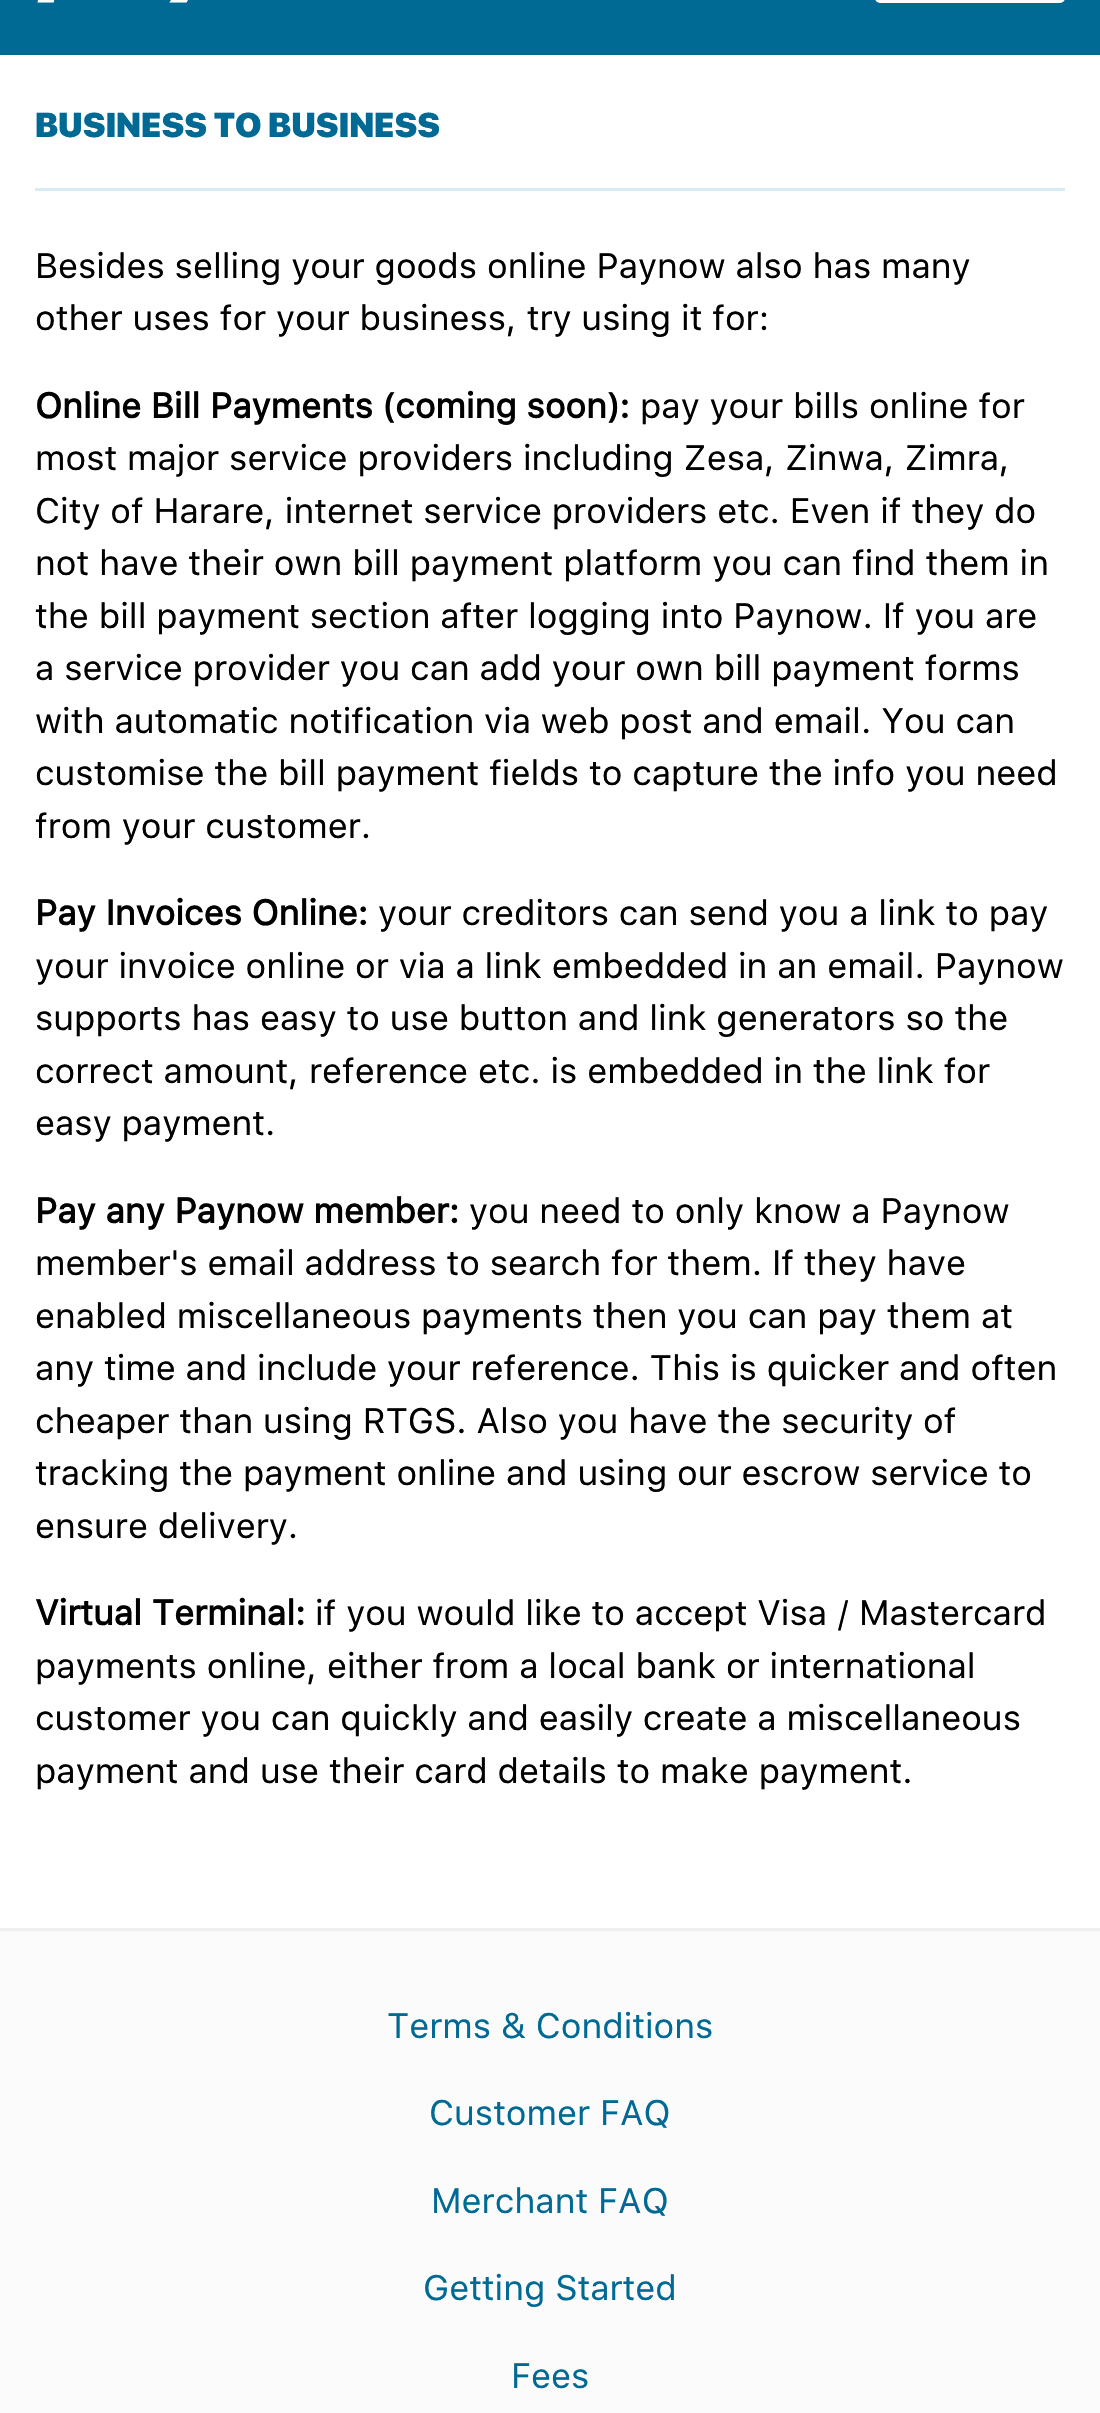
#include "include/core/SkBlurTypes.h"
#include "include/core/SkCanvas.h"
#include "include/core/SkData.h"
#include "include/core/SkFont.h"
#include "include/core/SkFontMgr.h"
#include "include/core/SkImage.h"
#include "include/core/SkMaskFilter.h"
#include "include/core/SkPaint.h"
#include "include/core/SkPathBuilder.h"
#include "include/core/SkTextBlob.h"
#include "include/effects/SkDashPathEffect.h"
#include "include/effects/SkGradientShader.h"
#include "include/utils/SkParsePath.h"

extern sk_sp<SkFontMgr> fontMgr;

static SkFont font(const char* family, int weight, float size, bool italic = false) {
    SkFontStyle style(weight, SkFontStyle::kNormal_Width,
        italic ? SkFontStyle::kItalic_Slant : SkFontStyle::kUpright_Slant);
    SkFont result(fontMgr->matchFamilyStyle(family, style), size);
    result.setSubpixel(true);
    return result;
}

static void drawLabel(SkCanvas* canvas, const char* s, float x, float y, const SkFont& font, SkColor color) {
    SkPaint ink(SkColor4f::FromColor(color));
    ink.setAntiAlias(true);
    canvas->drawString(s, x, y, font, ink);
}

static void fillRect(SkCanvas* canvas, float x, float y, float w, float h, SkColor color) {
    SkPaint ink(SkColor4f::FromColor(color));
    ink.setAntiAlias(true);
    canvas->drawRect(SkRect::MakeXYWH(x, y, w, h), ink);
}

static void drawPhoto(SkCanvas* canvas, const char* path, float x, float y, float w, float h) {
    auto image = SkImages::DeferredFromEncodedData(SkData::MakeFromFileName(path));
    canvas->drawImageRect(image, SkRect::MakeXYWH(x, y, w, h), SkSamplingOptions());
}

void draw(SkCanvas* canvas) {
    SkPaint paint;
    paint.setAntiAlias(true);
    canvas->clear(0xFFFFFFFF);
    fillRect(canvas, 0, 0, 1100, 55, 0xFF006A94);
    drawPhoto(canvas, "assets/img1.png", 37, 0, 151, 3);
    paint.setStroke(true);
    paint.setStrokeWidth(3);
    paint.setColor(0xFFFFFFFF);
    canvas->drawRoundRect(SkRect::MakeXYWH(876.5f, -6.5f, 187, 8), 3.5f, 3.5f, paint);
    fillRect(canvas, 35, 188, 1030, 3, 0xFFD7EBF4);
    SkFont font1 = font("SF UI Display", 900, 34.25f);
    drawLabel(canvas, "BUSINESS TO BUSINESS", 35, 137, font1, 0xFF006A94);
    SkFont font2 = font("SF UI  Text", 400, 35);
    drawLabel(canvas, "Besides selling your goods online Paynow also has many", 35, 278, font2, 0xFF000000);
    drawLabel(canvas, "other uses for your business, try using it for:", 35, 330, font2, 0xFF000000);
    SkFont font3 = font("SF UI  Text", 700, 35);
    drawLabel(canvas, "Online Bill Payments (coming soon):", 35, 418, font3, 0xFF000000);
    drawLabel(canvas, "pay your bills online for", 640, 418, font2, 0xFF000000);
    drawLabel(canvas, "most major service providers including Zesa, Zinwa, Zimra,", 35, 470, font2, 0xFF000000);
    drawLabel(canvas, "City of Harare, internet service providers etc. Even if they do", 35, 523, font2, 0xFF000000);
    drawLabel(canvas, "not have their own bill payment platform you can find them in", 35, 575, font2, 0xFF000000);
    drawLabel(canvas, "the bill payment section after logging into Paynow. If you are", 35, 628, font2, 0xFF000000);
    drawLabel(canvas, "a service provider you can add your own bill payment forms", 35, 680, font2, 0xFF000000);
    drawLabel(canvas, "with automatic notification via web post and email. You can", 35, 733, font2, 0xFF000000);
    drawLabel(canvas, "customise the bill payment fields to capture the info you need", 35, 785, font2, 0xFF000000);
    drawLabel(canvas, "from your customer.", 35, 838, font2, 0xFF000000);
    drawLabel(canvas, "Pay Invoices Online:", 35, 925, font3, 0xFF000000);
    drawLabel(canvas, "your creditors can send you a link to pay", 378, 925, font2, 0xFF000000);
    drawLabel(canvas, "your invoice online or via a link embedded in an email. Paynow", 35, 978, font2, 0xFF000000);
    drawLabel(canvas, "supports has easy to use button and link generators so the", 35, 1030, font2, 0xFF000000);
    drawLabel(canvas, "correct amount, reference etc. is embedded in the link for", 35, 1083, font2, 0xFF000000);
    drawLabel(canvas, "easy payment.", 35, 1135, font2, 0xFF000000);
    drawLabel(canvas, "Pay any Paynow member:", 35, 1223, font3, 0xFF000000);
    drawLabel(canvas, "you need to only know a Paynow", 469, 1223, font2, 0xFF000000);
    drawLabel(canvas, "member's email address to search for them. If they have", 35, 1275, font2, 0xFF000000);
    drawLabel(canvas, "enabled miscellaneous payments then you can pay them at", 35, 1328, font2, 0xFF000000);
    drawLabel(canvas, "any time and include your reference. This is quicker and often", 35, 1380, font2, 0xFF000000);
    drawLabel(canvas, "cheaper than using RTGS. Also you have the security of", 35, 1433, font2, 0xFF000000);
    drawLabel(canvas, "tracking the payment online and using our escrow service to", 35, 1485, font2, 0xFF000000);
    drawLabel(canvas, "ensure delivery.", 35, 1538, font2, 0xFF000000);
    drawLabel(canvas, "Virtual Terminal:", 35, 1625, font3, 0xFF000000);
    drawLabel(canvas, "if you would like to accept Visa / Mastercard", 315, 1625, font2, 0xFF000000);
    drawLabel(canvas, "payments online, either from a local bank or international", 35, 1678, font2, 0xFF000000);
    drawLabel(canvas, "customer you can quickly and easily create a miscellaneous", 35, 1730, font2, 0xFF000000);
    drawLabel(canvas, "payment and use their card details to make payment.", 35, 1783, font2, 0xFF000000);
    fillRect(canvas, 0, 1931, 1100, 482, 0xFFFBFBFB);
    fillRect(canvas, 0, 1928, 1100, 3, 0xFFEEEEEE);
    drawLabel(canvas, "Terms & Conditions", 387, 2038, font2, 0xFF006A94);
    drawLabel(canvas, "Customer FAQ", 429, 2125, font2, 0xFF006A94);
    drawLabel(canvas, "Merchant FAQ", 431, 2213, font2, 0xFF006A94);
    drawLabel(canvas, "Getting Started", 423, 2300, font2, 0xFF006A94);
    drawLabel(canvas, "Fees", 511, 2388, font2, 0xFF006A94);
}
